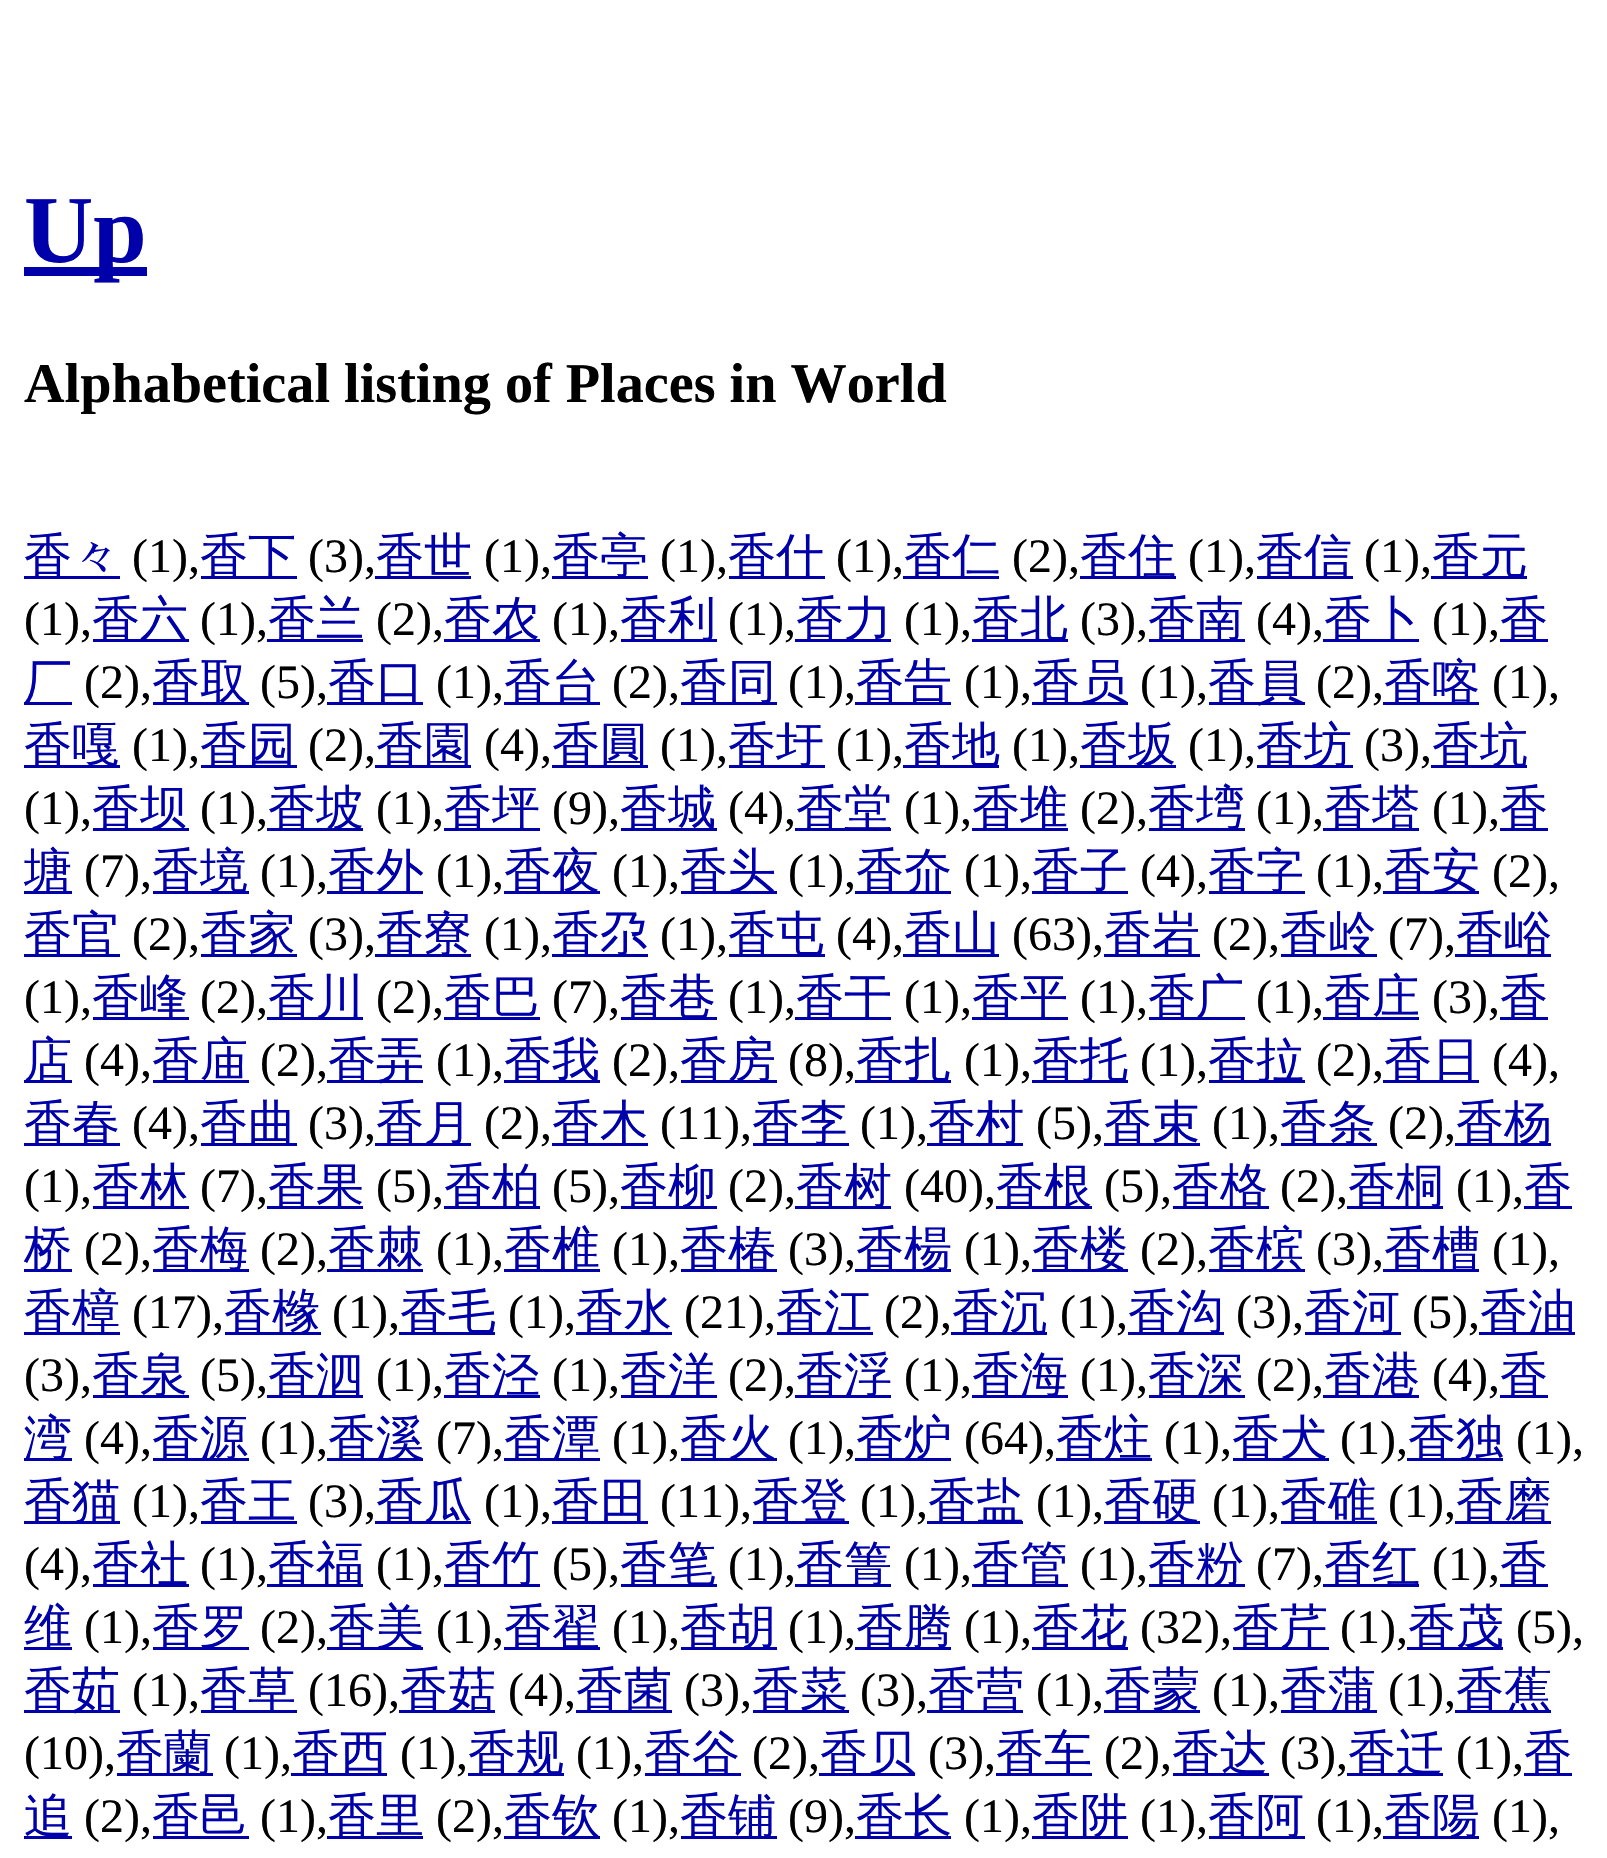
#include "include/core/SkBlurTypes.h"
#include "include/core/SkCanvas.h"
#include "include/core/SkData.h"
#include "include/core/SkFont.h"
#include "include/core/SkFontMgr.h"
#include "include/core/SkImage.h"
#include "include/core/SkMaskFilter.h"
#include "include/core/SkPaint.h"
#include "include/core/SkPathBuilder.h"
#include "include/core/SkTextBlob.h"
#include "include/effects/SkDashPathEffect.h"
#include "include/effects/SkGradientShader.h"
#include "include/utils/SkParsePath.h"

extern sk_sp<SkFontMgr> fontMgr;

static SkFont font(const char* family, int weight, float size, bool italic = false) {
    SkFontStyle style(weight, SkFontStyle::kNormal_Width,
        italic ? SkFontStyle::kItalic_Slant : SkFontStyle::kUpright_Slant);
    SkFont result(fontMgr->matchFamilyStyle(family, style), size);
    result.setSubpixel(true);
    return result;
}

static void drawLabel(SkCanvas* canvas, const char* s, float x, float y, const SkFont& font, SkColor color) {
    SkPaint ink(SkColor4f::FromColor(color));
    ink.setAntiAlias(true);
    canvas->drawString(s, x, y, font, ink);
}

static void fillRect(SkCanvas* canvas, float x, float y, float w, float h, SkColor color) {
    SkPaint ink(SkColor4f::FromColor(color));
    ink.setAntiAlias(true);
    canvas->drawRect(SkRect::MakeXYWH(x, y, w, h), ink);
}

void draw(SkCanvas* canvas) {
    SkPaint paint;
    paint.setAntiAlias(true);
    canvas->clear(0xFFFFFFFF);
    fillRect(canvas, 24, 267, 123, 9, 0xFF0000AB);
    SkFont font1 = font("Liberation Serif", 700, 96);
    drawLabel(canvas, "Up", 24, 262, font1, 0xFF0000AB);
    SkFont font2 = font("Liberation Serif", 700, 56.2f);
    drawLabel(canvas, "Alphabetical listing of Places in World", 24, 402, font2, 0xFF000000);
    fillRect(canvas, 24, 576, 96, 3, 0xFF0000AB);
    SkFont font3 = font("WenQuanYi Zen Hei", 500, 48);
    drawLabel(canvas, "香々", 24, 572, font3, 0xFF0000AB);
    SkFont font4 = font("Liberation Serif", 400, 48);
    drawLabel(canvas, "(1),", 132, 572, font4, 0xFF000000);
    fillRect(canvas, 201, 576, 96, 3, 0xFF0000AB);
    drawLabel(canvas, "香下", 200, 572, font3, 0xFF0000AB);
    drawLabel(canvas, "(3),", 308, 572, font4, 0xFF000000);
    fillRect(canvas, 375, 576, 96, 3, 0xFF0000AB);
    drawLabel(canvas, "香世", 376, 572, font3, 0xFF0000AB);
    drawLabel(canvas, "(1),", 484, 572, font4, 0xFF000000);
    fillRect(canvas, 552, 576, 96, 3, 0xFF0000AB);
    drawLabel(canvas, "香亭", 552, 572, font3, 0xFF0000AB);
    drawLabel(canvas, "(1),", 660, 572, font4, 0xFF000000);
    fillRect(canvas, 729, 576, 96, 3, 0xFF0000AB);
    drawLabel(canvas, "香什", 728, 572, font3, 0xFF0000AB);
    drawLabel(canvas, "(1),", 836, 572, font4, 0xFF000000);
    fillRect(canvas, 903, 576, 96, 3, 0xFF0000AB);
    drawLabel(canvas, "香仁", 904, 572, font3, 0xFF0000AB);
    drawLabel(canvas, "(2),", 1012, 572, font4, 0xFF000000);
    fillRect(canvas, 1080, 576, 96, 3, 0xFF0000AB);
    drawLabel(canvas, "香住", 1080, 572, font3, 0xFF0000AB);
    drawLabel(canvas, "(1),", 1188, 572, font4, 0xFF000000);
    fillRect(canvas, 1257, 576, 96, 3, 0xFF0000AB);
    drawLabel(canvas, "香信", 1256, 572, font3, 0xFF0000AB);
    drawLabel(canvas, "(1),", 1364, 572, font4, 0xFF000000);
    fillRect(canvas, 1431, 576, 96, 3, 0xFF0000AB);
    drawLabel(canvas, "香元", 1432, 572, font3, 0xFF0000AB);
    drawLabel(canvas, "(1),", 24, 635, font4, 0xFF000000);
    fillRect(canvas, 93, 639, 96, 3, 0xFF0000AB);
    drawLabel(canvas, "香六", 92, 635, font3, 0xFF0000AB);
    drawLabel(canvas, "(1),", 200, 635, font4, 0xFF000000);
    fillRect(canvas, 267, 639, 96, 3, 0xFF0000AB);
    drawLabel(canvas, "香兰", 268, 635, font3, 0xFF0000AB);
    drawLabel(canvas, "(2),", 376, 635, font4, 0xFF000000);
    fillRect(canvas, 444, 639, 96, 3, 0xFF0000AB);
    drawLabel(canvas, "香农", 444, 635, font3, 0xFF0000AB);
    drawLabel(canvas, "(1),", 552, 635, font4, 0xFF000000);
    fillRect(canvas, 621, 639, 96, 3, 0xFF0000AB);
    drawLabel(canvas, "香利", 620, 635, font3, 0xFF0000AB);
    drawLabel(canvas, "(1),", 728, 635, font4, 0xFF000000);
    fillRect(canvas, 795, 639, 96, 3, 0xFF0000AB);
    drawLabel(canvas, "香力", 796, 635, font3, 0xFF0000AB);
    drawLabel(canvas, "(1),", 904, 635, font4, 0xFF000000);
    fillRect(canvas, 972, 639, 96, 3, 0xFF0000AB);
    drawLabel(canvas, "香北", 972, 635, font3, 0xFF0000AB);
    drawLabel(canvas, "(3),", 1080, 635, font4, 0xFF000000);
    fillRect(canvas, 1149, 639, 96, 3, 0xFF0000AB);
    drawLabel(canvas, "香南", 1148, 635, font3, 0xFF0000AB);
    drawLabel(canvas, "(4),", 1256, 635, font4, 0xFF000000);
    fillRect(canvas, 1323, 639, 96, 3, 0xFF0000AB);
    drawLabel(canvas, "香卜", 1324, 635, font3, 0xFF0000AB);
    drawLabel(canvas, "(1),", 1432, 635, font4, 0xFF000000);
    fillRect(canvas, 1500, 639, 48, 3, 0xFF0000AB);
    drawLabel(canvas, "香", 1500, 635, font3, 0xFF0000AB);
    fillRect(canvas, 24, 702, 48, 3, 0xFF0000AB);
    drawLabel(canvas, "厂", 24, 698, font3, 0xFF0000AB);
    drawLabel(canvas, "(2),", 84, 698, font4, 0xFF000000);
    fillRect(canvas, 153, 702, 96, 3, 0xFF0000AB);
    drawLabel(canvas, "香取", 152, 698, font3, 0xFF0000AB);
    drawLabel(canvas, "(5),", 260, 698, font4, 0xFF000000);
    fillRect(canvas, 327, 702, 96, 3, 0xFF0000AB);
    drawLabel(canvas, "香口", 328, 698, font3, 0xFF0000AB);
    drawLabel(canvas, "(1),", 436, 698, font4, 0xFF000000);
    fillRect(canvas, 504, 702, 96, 3, 0xFF0000AB);
    drawLabel(canvas, "香台", 504, 698, font3, 0xFF0000AB);
    drawLabel(canvas, "(2),", 612, 698, font4, 0xFF000000);
    fillRect(canvas, 681, 702, 96, 3, 0xFF0000AB);
    drawLabel(canvas, "香同", 680, 698, font3, 0xFF0000AB);
    drawLabel(canvas, "(1),", 788, 698, font4, 0xFF000000);
    fillRect(canvas, 855, 702, 96, 3, 0xFF0000AB);
    drawLabel(canvas, "香告", 856, 698, font3, 0xFF0000AB);
    drawLabel(canvas, "(1),", 964, 698, font4, 0xFF000000);
    fillRect(canvas, 1032, 702, 96, 3, 0xFF0000AB);
    drawLabel(canvas, "香员", 1032, 698, font3, 0xFF0000AB);
    drawLabel(canvas, "(1),", 1140, 698, font4, 0xFF000000);
    fillRect(canvas, 1209, 702, 96, 3, 0xFF0000AB);
    drawLabel(canvas, "香員", 1208, 698, font3, 0xFF0000AB);
    drawLabel(canvas, "(2),", 1316, 698, font4, 0xFF000000);
    fillRect(canvas, 1383, 702, 96, 3, 0xFF0000AB);
    drawLabel(canvas, "香喀", 1384, 698, font3, 0xFF0000AB);
    drawLabel(canvas, "(1),", 1492, 698, font4, 0xFF000000);
    fillRect(canvas, 24, 765, 96, 3, 0xFF0000AB);
    drawLabel(canvas, "香嘎", 24, 761, font3, 0xFF0000AB);
    drawLabel(canvas, "(1),", 132, 761, font4, 0xFF000000);
    fillRect(canvas, 201, 765, 96, 3, 0xFF0000AB);
    drawLabel(canvas, "香园", 200, 761, font3, 0xFF0000AB);
    drawLabel(canvas, "(2),", 308, 761, font4, 0xFF000000);
    fillRect(canvas, 375, 765, 96, 3, 0xFF0000AB);
    drawLabel(canvas, "香園", 376, 761, font3, 0xFF0000AB);
    drawLabel(canvas, "(4),", 484, 761, font4, 0xFF000000);
    fillRect(canvas, 552, 765, 96, 3, 0xFF0000AB);
    drawLabel(canvas, "香圓", 552, 761, font3, 0xFF0000AB);
    drawLabel(canvas, "(1),", 660, 761, font4, 0xFF000000);
    fillRect(canvas, 729, 765, 96, 3, 0xFF0000AB);
    drawLabel(canvas, "香圩", 728, 761, font3, 0xFF0000AB);
    drawLabel(canvas, "(1),", 836, 761, font4, 0xFF000000);
    fillRect(canvas, 903, 765, 96, 3, 0xFF0000AB);
    drawLabel(canvas, "香地", 904, 761, font3, 0xFF0000AB);
    drawLabel(canvas, "(1),", 1012, 761, font4, 0xFF000000);
    fillRect(canvas, 1080, 765, 96, 3, 0xFF0000AB);
    drawLabel(canvas, "香坂", 1080, 761, font3, 0xFF0000AB);
    drawLabel(canvas, "(1),", 1188, 761, font4, 0xFF000000);
    fillRect(canvas, 1257, 765, 96, 3, 0xFF0000AB);
    drawLabel(canvas, "香坊", 1256, 761, font3, 0xFF0000AB);
    drawLabel(canvas, "(3),", 1364, 761, font4, 0xFF000000);
    fillRect(canvas, 1431, 765, 96, 3, 0xFF0000AB);
    drawLabel(canvas, "香坑", 1432, 761, font3, 0xFF0000AB);
    drawLabel(canvas, "(1),", 24, 824, font4, 0xFF000000);
    fillRect(canvas, 93, 828, 96, 3, 0xFF0000AB);
    drawLabel(canvas, "香坝", 92, 824, font3, 0xFF0000AB);
    drawLabel(canvas, "(1),", 200, 824, font4, 0xFF000000);
    fillRect(canvas, 267, 828, 96, 3, 0xFF0000AB);
    drawLabel(canvas, "香坡", 268, 824, font3, 0xFF0000AB);
    drawLabel(canvas, "(1),", 376, 824, font4, 0xFF000000);
    fillRect(canvas, 444, 828, 96, 3, 0xFF0000AB);
    drawLabel(canvas, "香坪", 444, 824, font3, 0xFF0000AB);
    drawLabel(canvas, "(9),", 552, 824, font4, 0xFF000000);
    fillRect(canvas, 621, 828, 96, 3, 0xFF0000AB);
    drawLabel(canvas, "香城", 620, 824, font3, 0xFF0000AB);
    drawLabel(canvas, "(4),", 728, 824, font4, 0xFF000000);
    fillRect(canvas, 795, 828, 96, 3, 0xFF0000AB);
    drawLabel(canvas, "香堂", 796, 824, font3, 0xFF0000AB);
    drawLabel(canvas, "(1),", 904, 824, font4, 0xFF000000);
    fillRect(canvas, 972, 828, 96, 3, 0xFF0000AB);
    drawLabel(canvas, "香堆", 972, 824, font3, 0xFF0000AB);
    drawLabel(canvas, "(2),", 1080, 824, font4, 0xFF000000);
    fillRect(canvas, 1149, 828, 96, 3, 0xFF0000AB);
    drawLabel(canvas, "香塆", 1148, 824, font3, 0xFF0000AB);
    drawLabel(canvas, "(1),", 1256, 824, font4, 0xFF000000);
    fillRect(canvas, 1323, 828, 96, 3, 0xFF0000AB);
    drawLabel(canvas, "香塔", 1324, 824, font3, 0xFF0000AB);
    drawLabel(canvas, "(1),", 1432, 824, font4, 0xFF000000);
    fillRect(canvas, 1500, 828, 48, 3, 0xFF0000AB);
    drawLabel(canvas, "香", 1500, 824, font3, 0xFF0000AB);
    fillRect(canvas, 24, 891, 48, 3, 0xFF0000AB);
    drawLabel(canvas, "塘", 24, 887, font3, 0xFF0000AB);
    drawLabel(canvas, "(7),", 84, 887, font4, 0xFF000000);
    fillRect(canvas, 153, 891, 96, 3, 0xFF0000AB);
    drawLabel(canvas, "香境", 152, 887, font3, 0xFF0000AB);
    drawLabel(canvas, "(1),", 260, 887, font4, 0xFF000000);
    fillRect(canvas, 327, 891, 96, 3, 0xFF0000AB);
    drawLabel(canvas, "香外", 328, 887, font3, 0xFF0000AB);
    drawLabel(canvas, "(1),", 436, 887, font4, 0xFF000000);
    fillRect(canvas, 504, 891, 96, 3, 0xFF0000AB);
    drawLabel(canvas, "香夜", 504, 887, font3, 0xFF0000AB);
    drawLabel(canvas, "(1),", 612, 887, font4, 0xFF000000);
    fillRect(canvas, 681, 891, 96, 3, 0xFF0000AB);
    drawLabel(canvas, "香头", 680, 887, font3, 0xFF0000AB);
    drawLabel(canvas, "(1),", 788, 887, font4, 0xFF000000);
    fillRect(canvas, 855, 891, 96, 3, 0xFF0000AB);
    drawLabel(canvas, "香夼", 856, 887, font3, 0xFF0000AB);
    drawLabel(canvas, "(1),", 964, 887, font4, 0xFF000000);
    fillRect(canvas, 1032, 891, 96, 3, 0xFF0000AB);
    drawLabel(canvas, "香子", 1032, 887, font3, 0xFF0000AB);
    drawLabel(canvas, "(4),", 1140, 887, font4, 0xFF000000);
    fillRect(canvas, 1209, 891, 96, 3, 0xFF0000AB);
    drawLabel(canvas, "香字", 1208, 887, font3, 0xFF0000AB);
    drawLabel(canvas, "(1),", 1316, 887, font4, 0xFF000000);
    fillRect(canvas, 1383, 891, 96, 3, 0xFF0000AB);
    drawLabel(canvas, "香安", 1384, 887, font3, 0xFF0000AB);
    drawLabel(canvas, "(2),", 1492, 887, font4, 0xFF000000);
    fillRect(canvas, 24, 954, 96, 3, 0xFF0000AB);
    drawLabel(canvas, "香官", 24, 950, font3, 0xFF0000AB);
    drawLabel(canvas, "(2),", 132, 950, font4, 0xFF000000);
    fillRect(canvas, 201, 954, 96, 3, 0xFF0000AB);
    drawLabel(canvas, "香家", 200, 950, font3, 0xFF0000AB);
    drawLabel(canvas, "(3),", 308, 950, font4, 0xFF000000);
    fillRect(canvas, 375, 954, 96, 3, 0xFF0000AB);
    drawLabel(canvas, "香寮", 376, 950, font3, 0xFF0000AB);
    drawLabel(canvas, "(1),", 484, 950, font4, 0xFF000000);
    fillRect(canvas, 552, 954, 96, 3, 0xFF0000AB);
    drawLabel(canvas, "香尕", 552, 950, font3, 0xFF0000AB);
    drawLabel(canvas, "(1),", 660, 950, font4, 0xFF000000);
    fillRect(canvas, 729, 954, 96, 3, 0xFF0000AB);
    drawLabel(canvas, "香屯", 728, 950, font3, 0xFF0000AB);
    drawLabel(canvas, "(4),", 836, 950, font4, 0xFF000000);
    fillRect(canvas, 903, 954, 96, 3, 0xFF0000AB);
    drawLabel(canvas, "香山", 904, 950, font3, 0xFF0000AB);
    drawLabel(canvas, "(63),", 1012, 950, font4, 0xFF000000);
    fillRect(canvas, 1104, 954, 96, 3, 0xFF0000AB);
    drawLabel(canvas, "香岩", 1104, 950, font3, 0xFF0000AB);
    drawLabel(canvas, "(2),", 1212, 950, font4, 0xFF000000);
    fillRect(canvas, 1281, 954, 96, 3, 0xFF0000AB);
    drawLabel(canvas, "香岭", 1280, 950, font3, 0xFF0000AB);
    drawLabel(canvas, "(7),", 1388, 950, font4, 0xFF000000);
    fillRect(canvas, 1455, 954, 96, 3, 0xFF0000AB);
    drawLabel(canvas, "香峪", 1456, 950, font3, 0xFF0000AB);
    drawLabel(canvas, "(1),", 24, 1013, font4, 0xFF000000);
    fillRect(canvas, 93, 1017, 96, 3, 0xFF0000AB);
    drawLabel(canvas, "香峰", 92, 1013, font3, 0xFF0000AB);
    drawLabel(canvas, "(2),", 200, 1013, font4, 0xFF000000);
    fillRect(canvas, 267, 1017, 96, 3, 0xFF0000AB);
    drawLabel(canvas, "香川", 268, 1013, font3, 0xFF0000AB);
    drawLabel(canvas, "(2),", 376, 1013, font4, 0xFF000000);
    fillRect(canvas, 444, 1017, 96, 3, 0xFF0000AB);
    drawLabel(canvas, "香巴", 444, 1013, font3, 0xFF0000AB);
    drawLabel(canvas, "(7),", 552, 1013, font4, 0xFF000000);
    fillRect(canvas, 621, 1017, 96, 3, 0xFF0000AB);
    drawLabel(canvas, "香巷", 620, 1013, font3, 0xFF0000AB);
    drawLabel(canvas, "(1),", 728, 1013, font4, 0xFF000000);
    fillRect(canvas, 795, 1017, 96, 3, 0xFF0000AB);
    drawLabel(canvas, "香干", 796, 1013, font3, 0xFF0000AB);
    drawLabel(canvas, "(1),", 904, 1013, font4, 0xFF000000);
    fillRect(canvas, 972, 1017, 96, 3, 0xFF0000AB);
    drawLabel(canvas, "香平", 972, 1013, font3, 0xFF0000AB);
    drawLabel(canvas, "(1),", 1080, 1013, font4, 0xFF000000);
    fillRect(canvas, 1149, 1017, 96, 3, 0xFF0000AB);
    drawLabel(canvas, "香广", 1148, 1013, font3, 0xFF0000AB);
    drawLabel(canvas, "(1),", 1256, 1013, font4, 0xFF000000);
    fillRect(canvas, 1323, 1017, 96, 3, 0xFF0000AB);
    drawLabel(canvas, "香庄", 1324, 1013, font3, 0xFF0000AB);
    drawLabel(canvas, "(3),", 1432, 1013, font4, 0xFF000000);
    fillRect(canvas, 1500, 1017, 48, 3, 0xFF0000AB);
    drawLabel(canvas, "香", 1500, 1013, font3, 0xFF0000AB);
    fillRect(canvas, 24, 1080, 48, 3, 0xFF0000AB);
    drawLabel(canvas, "店", 24, 1076, font3, 0xFF0000AB);
    drawLabel(canvas, "(4),", 84, 1076, font4, 0xFF000000);
    fillRect(canvas, 153, 1080, 96, 3, 0xFF0000AB);
    drawLabel(canvas, "香庙", 152, 1076, font3, 0xFF0000AB);
    drawLabel(canvas, "(2),", 260, 1076, font4, 0xFF000000);
    fillRect(canvas, 327, 1080, 96, 3, 0xFF0000AB);
    drawLabel(canvas, "香弄", 328, 1076, font3, 0xFF0000AB);
    drawLabel(canvas, "(1),", 436, 1076, font4, 0xFF000000);
    fillRect(canvas, 504, 1080, 96, 3, 0xFF0000AB);
    drawLabel(canvas, "香我", 504, 1076, font3, 0xFF0000AB);
    drawLabel(canvas, "(2),", 612, 1076, font4, 0xFF000000);
    fillRect(canvas, 681, 1080, 96, 3, 0xFF0000AB);
    drawLabel(canvas, "香房", 680, 1076, font3, 0xFF0000AB);
    drawLabel(canvas, "(8),", 788, 1076, font4, 0xFF000000);
    fillRect(canvas, 855, 1080, 96, 3, 0xFF0000AB);
    drawLabel(canvas, "香扎", 856, 1076, font3, 0xFF0000AB);
    drawLabel(canvas, "(1),", 964, 1076, font4, 0xFF000000);
    fillRect(canvas, 1032, 1080, 96, 3, 0xFF0000AB);
    drawLabel(canvas, "香托", 1032, 1076, font3, 0xFF0000AB);
    drawLabel(canvas, "(1),", 1140, 1076, font4, 0xFF000000);
    fillRect(canvas, 1209, 1080, 96, 3, 0xFF0000AB);
    drawLabel(canvas, "香拉", 1208, 1076, font3, 0xFF0000AB);
    drawLabel(canvas, "(2),", 1316, 1076, font4, 0xFF000000);
    fillRect(canvas, 1383, 1080, 96, 3, 0xFF0000AB);
    drawLabel(canvas, "香日", 1384, 1076, font3, 0xFF0000AB);
    drawLabel(canvas, "(4),", 1492, 1076, font4, 0xFF000000);
    fillRect(canvas, 24, 1143, 96, 3, 0xFF0000AB);
    drawLabel(canvas, "香春", 24, 1139, font3, 0xFF0000AB);
    drawLabel(canvas, "(4),", 132, 1139, font4, 0xFF000000);
    fillRect(canvas, 201, 1143, 96, 3, 0xFF0000AB);
    drawLabel(canvas, "香曲", 200, 1139, font3, 0xFF0000AB);
    drawLabel(canvas, "(3),", 308, 1139, font4, 0xFF000000);
    fillRect(canvas, 375, 1143, 96, 3, 0xFF0000AB);
    drawLabel(canvas, "香月", 376, 1139, font3, 0xFF0000AB);
    drawLabel(canvas, "(2),", 484, 1139, font4, 0xFF000000);
    fillRect(canvas, 552, 1143, 96, 3, 0xFF0000AB);
    drawLabel(canvas, "香木", 552, 1139, font3, 0xFF0000AB);
    drawLabel(canvas, "(11),", 660, 1139, font4, 0xFF000000);
    fillRect(canvas, 753, 1143, 96, 3, 0xFF0000AB);
    drawLabel(canvas, "香李", 752, 1139, font3, 0xFF0000AB);
    drawLabel(canvas, "(1),", 860, 1139, font4, 0xFF000000);
    fillRect(canvas, 927, 1143, 96, 3, 0xFF0000AB);
    drawLabel(canvas, "香村", 928, 1139, font3, 0xFF0000AB);
    drawLabel(canvas, "(5),", 1036, 1139, font4, 0xFF000000);
    fillRect(canvas, 1104, 1143, 96, 3, 0xFF0000AB);
    drawLabel(canvas, "香束", 1104, 1139, font3, 0xFF0000AB);
    drawLabel(canvas, "(1),", 1212, 1139, font4, 0xFF000000);
    fillRect(canvas, 1281, 1143, 96, 3, 0xFF0000AB);
    drawLabel(canvas, "香条", 1280, 1139, font3, 0xFF0000AB);
    drawLabel(canvas, "(2),", 1388, 1139, font4, 0xFF000000);
    fillRect(canvas, 1455, 1143, 96, 3, 0xFF0000AB);
    drawLabel(canvas, "香杨", 1456, 1139, font3, 0xFF0000AB);
    drawLabel(canvas, "(1),", 24, 1202, font4, 0xFF000000);
    fillRect(canvas, 93, 1206, 96, 3, 0xFF0000AB);
    drawLabel(canvas, "香林", 92, 1202, font3, 0xFF0000AB);
    drawLabel(canvas, "(7),", 200, 1202, font4, 0xFF000000);
    fillRect(canvas, 267, 1206, 96, 3, 0xFF0000AB);
    drawLabel(canvas, "香果", 268, 1202, font3, 0xFF0000AB);
    drawLabel(canvas, "(5),", 376, 1202, font4, 0xFF000000);
    fillRect(canvas, 444, 1206, 96, 3, 0xFF0000AB);
    drawLabel(canvas, "香柏", 444, 1202, font3, 0xFF0000AB);
    drawLabel(canvas, "(5),", 552, 1202, font4, 0xFF000000);
    fillRect(canvas, 621, 1206, 96, 3, 0xFF0000AB);
    drawLabel(canvas, "香柳", 620, 1202, font3, 0xFF0000AB);
    drawLabel(canvas, "(2),", 728, 1202, font4, 0xFF000000);
    fillRect(canvas, 795, 1206, 96, 3, 0xFF0000AB);
    drawLabel(canvas, "香树", 796, 1202, font3, 0xFF0000AB);
    drawLabel(canvas, "(40),", 904, 1202, font4, 0xFF000000);
    fillRect(canvas, 996, 1206, 96, 3, 0xFF0000AB);
    drawLabel(canvas, "香根", 996, 1202, font3, 0xFF0000AB);
    drawLabel(canvas, "(5),", 1104, 1202, font4, 0xFF000000);
    fillRect(canvas, 1173, 1206, 96, 3, 0xFF0000AB);
    drawLabel(canvas, "香格", 1172, 1202, font3, 0xFF0000AB);
    drawLabel(canvas, "(2),", 1280, 1202, font4, 0xFF000000);
    fillRect(canvas, 1347, 1206, 96, 3, 0xFF0000AB);
    drawLabel(canvas, "香桐", 1348, 1202, font3, 0xFF0000AB);
    drawLabel(canvas, "(1),", 1456, 1202, font4, 0xFF000000);
    fillRect(canvas, 1524, 1206, 48, 3, 0xFF0000AB);
    drawLabel(canvas, "香", 1524, 1202, font3, 0xFF0000AB);
    fillRect(canvas, 24, 1269, 48, 3, 0xFF0000AB);
    drawLabel(canvas, "桥", 24, 1265, font3, 0xFF0000AB);
    drawLabel(canvas, "(2),", 84, 1265, font4, 0xFF000000);
    fillRect(canvas, 153, 1269, 96, 3, 0xFF0000AB);
    drawLabel(canvas, "香梅", 152, 1265, font3, 0xFF0000AB);
    drawLabel(canvas, "(2),", 260, 1265, font4, 0xFF000000);
    fillRect(canvas, 327, 1269, 96, 3, 0xFF0000AB);
    drawLabel(canvas, "香棘", 328, 1265, font3, 0xFF0000AB);
    drawLabel(canvas, "(1),", 436, 1265, font4, 0xFF000000);
    fillRect(canvas, 504, 1269, 96, 3, 0xFF0000AB);
    drawLabel(canvas, "香椎", 504, 1265, font3, 0xFF0000AB);
    drawLabel(canvas, "(1),", 612, 1265, font4, 0xFF000000);
    fillRect(canvas, 681, 1269, 96, 3, 0xFF0000AB);
    drawLabel(canvas, "香椿", 680, 1265, font3, 0xFF0000AB);
    drawLabel(canvas, "(3),", 788, 1265, font4, 0xFF000000);
    fillRect(canvas, 855, 1269, 96, 3, 0xFF0000AB);
    drawLabel(canvas, "香楊", 856, 1265, font3, 0xFF0000AB);
    drawLabel(canvas, "(1),", 964, 1265, font4, 0xFF000000);
    fillRect(canvas, 1032, 1269, 96, 3, 0xFF0000AB);
    drawLabel(canvas, "香楼", 1032, 1265, font3, 0xFF0000AB);
    drawLabel(canvas, "(2),", 1140, 1265, font4, 0xFF000000);
    fillRect(canvas, 1209, 1269, 96, 3, 0xFF0000AB);
    drawLabel(canvas, "香槟", 1208, 1265, font3, 0xFF0000AB);
    drawLabel(canvas, "(3),", 1316, 1265, font4, 0xFF000000);
    fillRect(canvas, 1383, 1269, 96, 3, 0xFF0000AB);
    drawLabel(canvas, "香槽", 1384, 1265, font3, 0xFF0000AB);
    drawLabel(canvas, "(1),", 1492, 1265, font4, 0xFF000000);
    fillRect(canvas, 24, 1332, 96, 3, 0xFF0000AB);
    drawLabel(canvas, "香樟", 24, 1328, font3, 0xFF0000AB);
    drawLabel(canvas, "(17),", 132, 1328, font4, 0xFF000000);
    fillRect(canvas, 225, 1332, 96, 3, 0xFF0000AB);
    drawLabel(canvas, "香橼", 224, 1328, font3, 0xFF0000AB);
    drawLabel(canvas, "(1),", 332, 1328, font4, 0xFF000000);
    fillRect(canvas, 399, 1332, 96, 3, 0xFF0000AB);
    drawLabel(canvas, "香毛", 400, 1328, font3, 0xFF0000AB);
    drawLabel(canvas, "(1),", 508, 1328, font4, 0xFF000000);
    fillRect(canvas, 576, 1332, 96, 3, 0xFF0000AB);
    drawLabel(canvas, "香水", 576, 1328, font3, 0xFF0000AB);
    drawLabel(canvas, "(21),", 684, 1328, font4, 0xFF000000);
    fillRect(canvas, 777, 1332, 96, 3, 0xFF0000AB);
    drawLabel(canvas, "香江", 776, 1328, font3, 0xFF0000AB);
    drawLabel(canvas, "(2),", 884, 1328, font4, 0xFF000000);
    fillRect(canvas, 951, 1332, 96, 3, 0xFF0000AB);
    drawLabel(canvas, "香沉", 952, 1328, font3, 0xFF0000AB);
    drawLabel(canvas, "(1),", 1060, 1328, font4, 0xFF000000);
    fillRect(canvas, 1128, 1332, 96, 3, 0xFF0000AB);
    drawLabel(canvas, "香沟", 1128, 1328, font3, 0xFF0000AB);
    drawLabel(canvas, "(3),", 1236, 1328, font4, 0xFF000000);
    fillRect(canvas, 1305, 1332, 96, 3, 0xFF0000AB);
    drawLabel(canvas, "香河", 1304, 1328, font3, 0xFF0000AB);
    drawLabel(canvas, "(5),", 1412, 1328, font4, 0xFF000000);
    fillRect(canvas, 1479, 1332, 96, 3, 0xFF0000AB);
    drawLabel(canvas, "香油", 1480, 1328, font3, 0xFF0000AB);
    drawLabel(canvas, "(3),", 24, 1391, font4, 0xFF000000);
    fillRect(canvas, 93, 1395, 96, 3, 0xFF0000AB);
    drawLabel(canvas, "香泉", 92, 1391, font3, 0xFF0000AB);
    drawLabel(canvas, "(5),", 200, 1391, font4, 0xFF000000);
    fillRect(canvas, 267, 1395, 96, 3, 0xFF0000AB);
    drawLabel(canvas, "香泗", 268, 1391, font3, 0xFF0000AB);
    drawLabel(canvas, "(1),", 376, 1391, font4, 0xFF000000);
    fillRect(canvas, 444, 1395, 96, 3, 0xFF0000AB);
    drawLabel(canvas, "香泾", 444, 1391, font3, 0xFF0000AB);
    drawLabel(canvas, "(1),", 552, 1391, font4, 0xFF000000);
    fillRect(canvas, 621, 1395, 96, 3, 0xFF0000AB);
    drawLabel(canvas, "香洋", 620, 1391, font3, 0xFF0000AB);
    drawLabel(canvas, "(2),", 728, 1391, font4, 0xFF000000);
    fillRect(canvas, 795, 1395, 96, 3, 0xFF0000AB);
    drawLabel(canvas, "香浮", 796, 1391, font3, 0xFF0000AB);
    drawLabel(canvas, "(1),", 904, 1391, font4, 0xFF000000);
    fillRect(canvas, 972, 1395, 96, 3, 0xFF0000AB);
    drawLabel(canvas, "香海", 972, 1391, font3, 0xFF0000AB);
    drawLabel(canvas, "(1),", 1080, 1391, font4, 0xFF000000);
    fillRect(canvas, 1149, 1395, 96, 3, 0xFF0000AB);
    drawLabel(canvas, "香深", 1148, 1391, font3, 0xFF0000AB);
    drawLabel(canvas, "(2),", 1256, 1391, font4, 0xFF000000);
    fillRect(canvas, 1323, 1395, 96, 3, 0xFF0000AB);
    drawLabel(canvas, "香港", 1324, 1391, font3, 0xFF0000AB);
    drawLabel(canvas, "(4),", 1432, 1391, font4, 0xFF000000);
    fillRect(canvas, 1500, 1395, 48, 3, 0xFF0000AB);
    drawLabel(canvas, "香", 1500, 1391, font3, 0xFF0000AB);
    fillRect(canvas, 24, 1458, 48, 3, 0xFF0000AB);
    drawLabel(canvas, "湾", 24, 1454, font3, 0xFF0000AB);
    drawLabel(canvas, "(4),", 84, 1454, font4, 0xFF000000);
    fillRect(canvas, 153, 1458, 96, 3, 0xFF0000AB);
    drawLabel(canvas, "香源", 152, 1454, font3, 0xFF0000AB);
    drawLabel(canvas, "(1),", 260, 1454, font4, 0xFF000000);
    fillRect(canvas, 327, 1458, 96, 3, 0xFF0000AB);
    drawLabel(canvas, "香溪", 328, 1454, font3, 0xFF0000AB);
    drawLabel(canvas, "(7),", 436, 1454, font4, 0xFF000000);
    fillRect(canvas, 504, 1458, 96, 3, 0xFF0000AB);
    drawLabel(canvas, "香潭", 504, 1454, font3, 0xFF0000AB);
    drawLabel(canvas, "(1),", 612, 1454, font4, 0xFF000000);
    fillRect(canvas, 681, 1458, 96, 3, 0xFF0000AB);
    drawLabel(canvas, "香火", 680, 1454, font3, 0xFF0000AB);
    drawLabel(canvas, "(1),", 788, 1454, font4, 0xFF000000);
    fillRect(canvas, 855, 1458, 96, 3, 0xFF0000AB);
    drawLabel(canvas, "香炉", 856, 1454, font3, 0xFF0000AB);
    drawLabel(canvas, "(64),", 964, 1454, font4, 0xFF000000);
    fillRect(canvas, 1056, 1458, 96, 3, 0xFF0000AB);
    drawLabel(canvas, "香炷", 1056, 1454, font3, 0xFF0000AB);
    drawLabel(canvas, "(1),", 1164, 1454, font4, 0xFF000000);
    fillRect(canvas, 1233, 1458, 96, 3, 0xFF0000AB);
    drawLabel(canvas, "香犬", 1232, 1454, font3, 0xFF0000AB);
    drawLabel(canvas, "(1),", 1340, 1454, font4, 0xFF000000);
    fillRect(canvas, 1407, 1458, 96, 3, 0xFF0000AB);
    drawLabel(canvas, "香独", 1408, 1454, font3, 0xFF0000AB);
    drawLabel(canvas, "(1),", 1516, 1454, font4, 0xFF000000);
    fillRect(canvas, 24, 1521, 96, 3, 0xFF0000AB);
    drawLabel(canvas, "香猫", 24, 1517, font3, 0xFF0000AB);
    drawLabel(canvas, "(1),", 132, 1517, font4, 0xFF000000);
    fillRect(canvas, 201, 1521, 96, 3, 0xFF0000AB);
    drawLabel(canvas, "香王", 200, 1517, font3, 0xFF0000AB);
    drawLabel(canvas, "(3),", 308, 1517, font4, 0xFF000000);
    fillRect(canvas, 375, 1521, 96, 3, 0xFF0000AB);
    drawLabel(canvas, "香瓜", 376, 1517, font3, 0xFF0000AB);
    drawLabel(canvas, "(1),", 484, 1517, font4, 0xFF000000);
    fillRect(canvas, 552, 1521, 96, 3, 0xFF0000AB);
    drawLabel(canvas, "香田", 552, 1517, font3, 0xFF0000AB);
    drawLabel(canvas, "(11),", 660, 1517, font4, 0xFF000000);
    fillRect(canvas, 753, 1521, 96, 3, 0xFF0000AB);
    drawLabel(canvas, "香登", 752, 1517, font3, 0xFF0000AB);
    drawLabel(canvas, "(1),", 860, 1517, font4, 0xFF000000);
    fillRect(canvas, 927, 1521, 96, 3, 0xFF0000AB);
    drawLabel(canvas, "香盐", 928, 1517, font3, 0xFF0000AB);
    drawLabel(canvas, "(1),", 1036, 1517, font4, 0xFF000000);
    fillRect(canvas, 1104, 1521, 96, 3, 0xFF0000AB);
    drawLabel(canvas, "香硬", 1104, 1517, font3, 0xFF0000AB);
    drawLabel(canvas, "(1),", 1212, 1517, font4, 0xFF000000);
    fillRect(canvas, 1281, 1521, 96, 3, 0xFF0000AB);
    drawLabel(canvas, "香碓", 1280, 1517, font3, 0xFF0000AB);
    drawLabel(canvas, "(1),", 1388, 1517, font4, 0xFF000000);
    fillRect(canvas, 1455, 1521, 96, 3, 0xFF0000AB);
    drawLabel(canvas, "香磨", 1456, 1517, font3, 0xFF0000AB);
    drawLabel(canvas, "(4),", 24, 1580, font4, 0xFF000000);
    fillRect(canvas, 93, 1584, 96, 3, 0xFF0000AB);
    drawLabel(canvas, "香社", 92, 1580, font3, 0xFF0000AB);
    drawLabel(canvas, "(1),", 200, 1580, font4, 0xFF000000);
    fillRect(canvas, 267, 1584, 96, 3, 0xFF0000AB);
    drawLabel(canvas, "香福", 268, 1580, font3, 0xFF0000AB);
    drawLabel(canvas, "(1),", 376, 1580, font4, 0xFF000000);
    fillRect(canvas, 444, 1584, 96, 3, 0xFF0000AB);
    drawLabel(canvas, "香竹", 444, 1580, font3, 0xFF0000AB);
    drawLabel(canvas, "(5),", 552, 1580, font4, 0xFF000000);
    fillRect(canvas, 621, 1584, 96, 3, 0xFF0000AB);
    drawLabel(canvas, "香笔", 620, 1580, font3, 0xFF0000AB);
    drawLabel(canvas, "(1),", 728, 1580, font4, 0xFF000000);
    fillRect(canvas, 795, 1584, 96, 3, 0xFF0000AB);
    drawLabel(canvas, "香箐", 796, 1580, font3, 0xFF0000AB);
    drawLabel(canvas, "(1),", 904, 1580, font4, 0xFF000000);
    fillRect(canvas, 972, 1584, 96, 3, 0xFF0000AB);
    drawLabel(canvas, "香管", 972, 1580, font3, 0xFF0000AB);
    drawLabel(canvas, "(1),", 1080, 1580, font4, 0xFF000000);
    fillRect(canvas, 1149, 1584, 96, 3, 0xFF0000AB);
    drawLabel(canvas, "香粉", 1148, 1580, font3, 0xFF0000AB);
    drawLabel(canvas, "(7),", 1256, 1580, font4, 0xFF000000);
    fillRect(canvas, 1323, 1584, 96, 3, 0xFF0000AB);
    drawLabel(canvas, "香红", 1324, 1580, font3, 0xFF0000AB);
    drawLabel(canvas, "(1),", 1432, 1580, font4, 0xFF000000);
    fillRect(canvas, 1500, 1584, 48, 3, 0xFF0000AB);
    drawLabel(canvas, "香", 1500, 1580, font3, 0xFF0000AB);
    fillRect(canvas, 24, 1647, 48, 3, 0xFF0000AB);
    drawLabel(canvas, "维", 24, 1643, font3, 0xFF0000AB);
    drawLabel(canvas, "(1),", 84, 1643, font4, 0xFF000000);
    fillRect(canvas, 153, 1647, 96, 3, 0xFF0000AB);
    drawLabel(canvas, "香罗", 152, 1643, font3, 0xFF0000AB);
    drawLabel(canvas, "(2),", 260, 1643, font4, 0xFF000000);
    fillRect(canvas, 327, 1647, 96, 3, 0xFF0000AB);
    drawLabel(canvas, "香美", 328, 1643, font3, 0xFF0000AB);
    drawLabel(canvas, "(1),", 436, 1643, font4, 0xFF000000);
    fillRect(canvas, 504, 1647, 96, 3, 0xFF0000AB);
    drawLabel(canvas, "香翟", 504, 1643, font3, 0xFF0000AB);
    drawLabel(canvas, "(1),", 612, 1643, font4, 0xFF000000);
    fillRect(canvas, 681, 1647, 96, 3, 0xFF0000AB);
    drawLabel(canvas, "香胡", 680, 1643, font3, 0xFF0000AB);
    drawLabel(canvas, "(1),", 788, 1643, font4, 0xFF000000);
    fillRect(canvas, 855, 1647, 96, 3, 0xFF0000AB);
    drawLabel(canvas, "香腾", 856, 1643, font3, 0xFF0000AB);
    drawLabel(canvas, "(1),", 964, 1643, font4, 0xFF000000);
    fillRect(canvas, 1032, 1647, 96, 3, 0xFF0000AB);
    drawLabel(canvas, "香花", 1032, 1643, font3, 0xFF0000AB);
    drawLabel(canvas, "(32),", 1140, 1643, font4, 0xFF000000);
    fillRect(canvas, 1233, 1647, 96, 3, 0xFF0000AB);
    drawLabel(canvas, "香芹", 1232, 1643, font3, 0xFF0000AB);
    drawLabel(canvas, "(1),", 1340, 1643, font4, 0xFF000000);
    fillRect(canvas, 1407, 1647, 96, 3, 0xFF0000AB);
    drawLabel(canvas, "香茂", 1408, 1643, font3, 0xFF0000AB);
    drawLabel(canvas, "(5),", 1516, 1643, font4, 0xFF000000);
    fillRect(canvas, 24, 1710, 96, 3, 0xFF0000AB);
    drawLabel(canvas, "香茹", 24, 1706, font3, 0xFF0000AB);
    drawLabel(canvas, "(1),", 132, 1706, font4, 0xFF000000);
    fillRect(canvas, 201, 1710, 96, 3, 0xFF0000AB);
    drawLabel(canvas, "香草", 200, 1706, font3, 0xFF0000AB);
    drawLabel(canvas, "(16),", 308, 1706, font4, 0xFF000000);
    fillRect(canvas, 399, 1710, 96, 3, 0xFF0000AB);
    drawLabel(canvas, "香菇", 400, 1706, font3, 0xFF0000AB);
    drawLabel(canvas, "(4),", 508, 1706, font4, 0xFF000000);
    fillRect(canvas, 576, 1710, 96, 3, 0xFF0000AB);
    drawLabel(canvas, "香菌", 576, 1706, font3, 0xFF0000AB);
    drawLabel(canvas, "(3),", 684, 1706, font4, 0xFF000000);
    fillRect(canvas, 753, 1710, 96, 3, 0xFF0000AB);
    drawLabel(canvas, "香菜", 752, 1706, font3, 0xFF0000AB);
    drawLabel(canvas, "(3),", 860, 1706, font4, 0xFF000000);
    fillRect(canvas, 927, 1710, 96, 3, 0xFF0000AB);
    drawLabel(canvas, "香营", 928, 1706, font3, 0xFF0000AB);
    drawLabel(canvas, "(1),", 1036, 1706, font4, 0xFF000000);
    fillRect(canvas, 1104, 1710, 96, 3, 0xFF0000AB);
    drawLabel(canvas, "香蒙", 1104, 1706, font3, 0xFF0000AB);
    drawLabel(canvas, "(1),", 1212, 1706, font4, 0xFF000000);
    fillRect(canvas, 1281, 1710, 96, 3, 0xFF0000AB);
    drawLabel(canvas, "香蒲", 1280, 1706, font3, 0xFF0000AB);
    drawLabel(canvas, "(1),", 1388, 1706, font4, 0xFF000000);
    fillRect(canvas, 1455, 1710, 96, 3, 0xFF0000AB);
    drawLabel(canvas, "香蕉", 1456, 1706, font3, 0xFF0000AB);
    drawLabel(canvas, "(10),", 24, 1769, font4, 0xFF000000);
    fillRect(canvas, 117, 1773, 96, 3, 0xFF0000AB);
    drawLabel(canvas, "香蘭", 116, 1769, font3, 0xFF0000AB);
    drawLabel(canvas, "(1),", 224, 1769, font4, 0xFF000000);
    fillRect(canvas, 291, 1773, 96, 3, 0xFF0000AB);
    drawLabel(canvas, "香西", 292, 1769, font3, 0xFF0000AB);
    drawLabel(canvas, "(1),", 400, 1769, font4, 0xFF000000);
    fillRect(canvas, 468, 1773, 96, 3, 0xFF0000AB);
    drawLabel(canvas, "香规", 468, 1769, font3, 0xFF0000AB);
    drawLabel(canvas, "(1),", 576, 1769, font4, 0xFF000000);
    fillRect(canvas, 645, 1773, 96, 3, 0xFF0000AB);
    drawLabel(canvas, "香谷", 644, 1769, font3, 0xFF0000AB);
    drawLabel(canvas, "(2),", 752, 1769, font4, 0xFF000000);
    fillRect(canvas, 819, 1773, 96, 3, 0xFF0000AB);
    drawLabel(canvas, "香贝", 820, 1769, font3, 0xFF0000AB);
    drawLabel(canvas, "(3),", 928, 1769, font4, 0xFF000000);
    fillRect(canvas, 996, 1773, 96, 3, 0xFF0000AB);
    drawLabel(canvas, "香车", 996, 1769, font3, 0xFF0000AB);
    drawLabel(canvas, "(2),", 1104, 1769, font4, 0xFF000000);
    fillRect(canvas, 1173, 1773, 96, 3, 0xFF0000AB);
    drawLabel(canvas, "香达", 1172, 1769, font3, 0xFF0000AB);
    drawLabel(canvas, "(3),", 1280, 1769, font4, 0xFF000000);
    fillRect(canvas, 1347, 1773, 96, 3, 0xFF0000AB);
    drawLabel(canvas, "香迁", 1348, 1769, font3, 0xFF0000AB);
    drawLabel(canvas, "(1),", 1456, 1769, font4, 0xFF000000);
    fillRect(canvas, 1524, 1773, 48, 3, 0xFF0000AB);
    drawLabel(canvas, "香", 1524, 1769, font3, 0xFF0000AB);
    fillRect(canvas, 24, 1836, 48, 3, 0xFF0000AB);
    drawLabel(canvas, "追", 24, 1832, font3, 0xFF0000AB);
    drawLabel(canvas, "(2),", 84, 1832, font4, 0xFF000000);
    fillRect(canvas, 153, 1836, 96, 3, 0xFF0000AB);
    drawLabel(canvas, "香邑", 152, 1832, font3, 0xFF0000AB);
    drawLabel(canvas, "(1),", 260, 1832, font4, 0xFF000000);
    fillRect(canvas, 327, 1836, 96, 3, 0xFF0000AB);
    drawLabel(canvas, "香里", 328, 1832, font3, 0xFF0000AB);
    drawLabel(canvas, "(2),", 436, 1832, font4, 0xFF000000);
    fillRect(canvas, 504, 1836, 96, 3, 0xFF0000AB);
    drawLabel(canvas, "香钦", 504, 1832, font3, 0xFF0000AB);
    drawLabel(canvas, "(1),", 612, 1832, font4, 0xFF000000);
    fillRect(canvas, 681, 1836, 96, 3, 0xFF0000AB);
    drawLabel(canvas, "香铺", 680, 1832, font3, 0xFF0000AB);
    drawLabel(canvas, "(9),", 788, 1832, font4, 0xFF000000);
    fillRect(canvas, 855, 1836, 96, 3, 0xFF0000AB);
    drawLabel(canvas, "香长", 856, 1832, font3, 0xFF0000AB);
    drawLabel(canvas, "(1),", 964, 1832, font4, 0xFF000000);
    fillRect(canvas, 1032, 1836, 96, 3, 0xFF0000AB);
    drawLabel(canvas, "香阱", 1032, 1832, font3, 0xFF0000AB);
    drawLabel(canvas, "(1),", 1140, 1832, font4, 0xFF000000);
    fillRect(canvas, 1209, 1836, 96, 3, 0xFF0000AB);
    drawLabel(canvas, "香阿", 1208, 1832, font3, 0xFF0000AB);
    drawLabel(canvas, "(1),", 1316, 1832, font4, 0xFF000000);
    fillRect(canvas, 1383, 1836, 96, 3, 0xFF0000AB);
    drawLabel(canvas, "香陽", 1384, 1832, font3, 0xFF0000AB);
    drawLabel(canvas, "(1),", 1492, 1832, font4, 0xFF000000);
}
